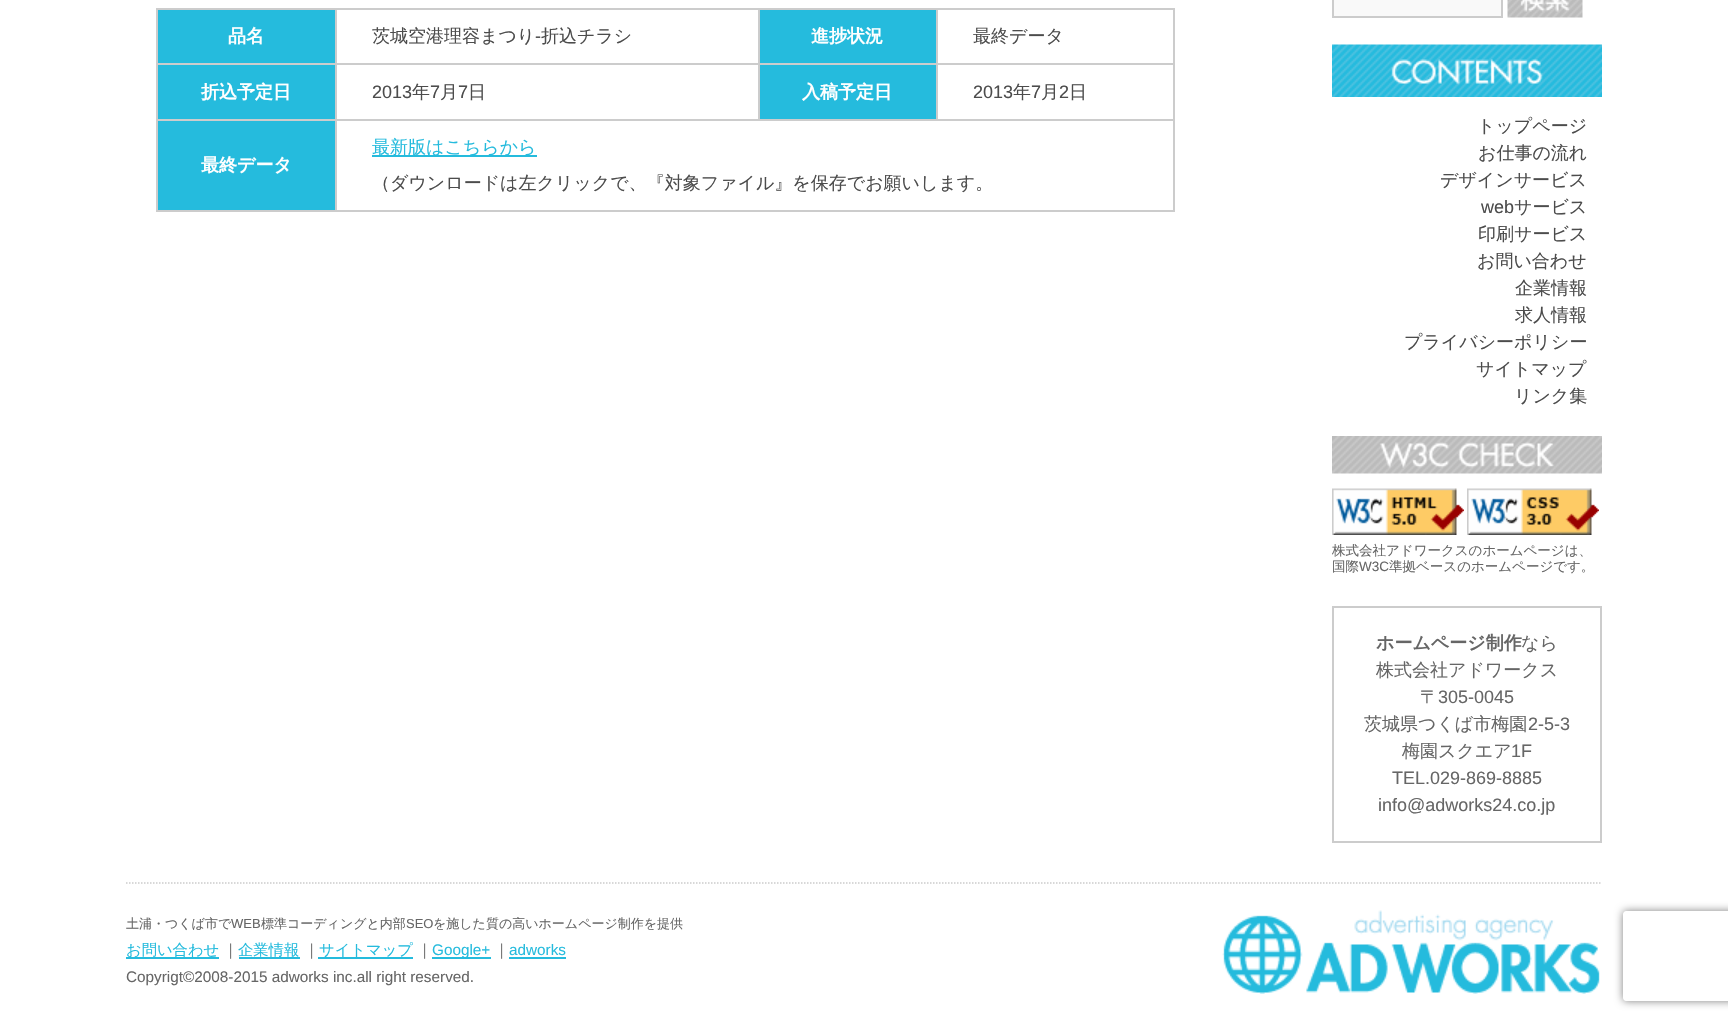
#include "include/core/SkBlurTypes.h"
#include "include/core/SkCanvas.h"
#include "include/core/SkData.h"
#include "include/core/SkFont.h"
#include "include/core/SkFontMgr.h"
#include "include/core/SkImage.h"
#include "include/core/SkMaskFilter.h"
#include "include/core/SkPaint.h"
#include "include/core/SkPathBuilder.h"
#include "include/core/SkTextBlob.h"
#include "include/effects/SkDashPathEffect.h"
#include "include/effects/SkGradientShader.h"
#include "include/utils/SkParsePath.h"

extern sk_sp<SkFontMgr> fontMgr;

static SkFont font(const char* family, int weight, float size, bool italic = false) {
    SkFontStyle style(weight, SkFontStyle::kNormal_Width,
        italic ? SkFontStyle::kItalic_Slant : SkFontStyle::kUpright_Slant);
    SkFont result(fontMgr->matchFamilyStyle(family, style), size);
    result.setSubpixel(true);
    return result;
}

static void drawLabel(SkCanvas* canvas, const char* s, float x, float y, const SkFont& font, SkColor color) {
    SkPaint ink(SkColor4f::FromColor(color));
    ink.setAntiAlias(true);
    canvas->drawString(s, x, y, font, ink);
}

static void fillRect(SkCanvas* canvas, float x, float y, float w, float h, SkColor color) {
    SkPaint ink(SkColor4f::FromColor(color));
    ink.setAntiAlias(true);
    canvas->drawRect(SkRect::MakeXYWH(x, y, w, h), ink);
}

static void drawPhoto(SkCanvas* canvas, const char* path, float x, float y, float w, float h) {
    auto image = SkImages::DeferredFromEncodedData(SkData::MakeFromFileName(path));
    canvas->drawImageRect(image, SkRect::MakeXYWH(x, y, w, h), SkSamplingOptions());
}

static SkPath parsePath(const char* data, bool evenOdd = false) {
    SkPath result = *SkParsePath::FromSVGString(data);
    if (evenOdd) result.setFillType(SkPathFillType::kEvenOdd);
    return result;
}

void draw(SkCanvas* canvas) {
    SkPaint paint;
    paint.setAntiAlias(true);
    canvas->clear(0xFFFFFFFF);
    fillRect(canvas, 156, 8, 1019, 2, 0xFFCCCCCC);
    fillRect(canvas, 1173, 8, 2, 204, 0xFFCCCCCC);
    fillRect(canvas, 156, 210, 1019, 2, 0xFFCCCCCC);
    fillRect(canvas, 156, 8, 2, 204, 0xFFCCCCCC);
    fillRect(canvas, 158, 10, 177, 53, 0xFF25BBDD);
    SkFont font1 = font("WenQuanYi Zen Hei", 700, 18);
    drawLabel(canvas, "品名", 228, 42, font1, 0xFFFFFFFF);
    fillRect(canvas, 936, 63, 239, 2, 0xFFCCCCCC);
    fillRect(canvas, 335, 119, 840, 2, 0xFFCCCCCC);
    fillRect(canvas, 936, 63, 2, 57, 0xFFCCCCCC);
    fillRect(canvas, 758, 63, 180, 2, 0xFFCCCCCC);
    fillRect(canvas, 758, 63, 2, 57, 0xFFCCCCCC);
    fillRect(canvas, 335, 63, 424, 2, 0xFFCCCCCC);
    fillRect(canvas, 335, 119, 2, 93, 0xFFCCCCCC);
    fillRect(canvas, 156, 119, 180, 2, 0xFFCCCCCC);
    fillRect(canvas, 335, 63, 2, 57, 0xFFCCCCCC);
    fillRect(canvas, 156, 63, 180, 2, 0xFFCCCCCC);
    fillRect(canvas, 335, 8, 2, 57, 0xFFCCCCCC);
    SkFont font2 = font("WenQuanYi Zen Hei", 500, 18);
    drawLabel(canvas, "茨城空港理容まつり", 372, 42, font2, 0xFF4C4C4C);
    SkFont font3 = font("Liberation Sans", 400, 18);
    drawLabel(canvas, "-", 535, 42, font3, 0xFF4C4C4C);
    drawLabel(canvas, "折込チラシ", 541, 42, font2, 0xFF4C4C4C);
    fillRect(canvas, 760, 10, 176, 53, 0xFF25BBDD);
    fillRect(canvas, 758, 8, 2, 57, 0xFFCCCCCC);
    drawLabel(canvas, "進捗状況", 811, 42, font1, 0xFFFFFFFF);
    fillRect(canvas, 936, 8, 2, 57, 0xFFCCCCCC);
    drawLabel(canvas, "最終データ", 973, 42, font2, 0xFF4C4C4C);
    fillRect(canvas, 158, 65, 177, 54, 0xFF25BBDD);
    drawLabel(canvas, "折込予定日", 201, 98, font1, 0xFFFFFFFF);
    drawLabel(canvas, "2013", 372, 98, font3, 0xFF4C4C4C);
    drawLabel(canvas, "年", 412, 98, font2, 0xFF4C4C4C);
    drawLabel(canvas, "7", 430, 98, font3, 0xFF4C4C4C);
    drawLabel(canvas, "月", 440, 98, font2, 0xFF4C4C4C);
    drawLabel(canvas, "7", 458, 98, font3, 0xFF4C4C4C);
    drawLabel(canvas, "日", 468, 98, font2, 0xFF4C4C4C);
    fillRect(canvas, 760, 65, 176, 54, 0xFF25BBDD);
    drawLabel(canvas, "入稿予定日", 802, 98, font1, 0xFFFFFFFF);
    drawLabel(canvas, "2013", 973, 98, font3, 0xFF4C4C4C);
    drawLabel(canvas, "年", 1013, 98, font2, 0xFF4C4C4C);
    drawLabel(canvas, "7", 1031, 98, font3, 0xFF4C4C4C);
    drawLabel(canvas, "月", 1041, 98, font2, 0xFF4C4C4C);
    drawLabel(canvas, "2", 1059, 98, font3, 0xFF4C4C4C);
    drawLabel(canvas, "日", 1069, 98, font2, 0xFF4C4C4C);
    fillRect(canvas, 158, 121, 177, 89, 0xFF25BBDD);
    drawLabel(canvas, "最終データ", 201, 171, font1, 0xFFFFFFFF);
    fillRect(canvas, 372, 155, 165, 2, 0xFF25BBDD);
    drawLabel(canvas, "最新版はこちらから", 372, 153, font2, 0xFF25BBDD);
    drawLabel(canvas, "（ダウンロードは左クリックで、『対象ファイル』を保存でお願いします。", 372, 189, font2, 0xFF4C4C4C);
    paint.setColor(0xFFF9F9F9);
    canvas->drawRect(SkRect::MakeXYWH(1333, -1, 169, 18), paint);
    paint.setStroke(true);
    paint.setStrokeWidth(2);
    paint.setColor(0xFFCCCCCC);
    canvas->drawRect(SkRect::MakeXYWH(1333, -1, 169, 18), paint);
    drawPhoto(canvas, "assets/img1.png", 1507, 0, 76, 18);
    drawPhoto(canvas, "assets/img2.png", 1332, 44, 270, 53);
    drawLabel(canvas, "トップページ", 1477, 132, font2, 0xFF4C4C4C);
    drawLabel(canvas, "お仕事の流れ", 1478, 159, font2, 0xFF4C4C4C);
    drawLabel(canvas, "デザインサービス", 1440, 186, font2, 0xFF4C4C4C);
    drawLabel(canvas, "web", 1481, 213, font3, 0xFF4C4C4C);
    drawLabel(canvas, "サービス", 1514, 213, font2, 0xFF4C4C4C);
    drawLabel(canvas, "印刷サービス", 1478, 240, font2, 0xFF4C4C4C);
    drawLabel(canvas, "お問い合わせ", 1477, 267, font2, 0xFF4C4C4C);
    drawLabel(canvas, "企業情報", 1515, 294, font2, 0xFF4C4C4C);
    drawLabel(canvas, "求人情報", 1515, 321, font2, 0xFF4C4C4C);
    drawLabel(canvas, "プライバシーポリシー", 1404, 348, font2, 0xFF4C4C4C);
    drawLabel(canvas, "サイトマップ", 1476, 375, font2, 0xFF4C4C4C);
    drawLabel(canvas, "リンク集", 1514, 402, font2, 0xFF4C4C4C);
    drawPhoto(canvas, "assets/img3.png", 1332, 436, 270, 38);
    drawPhoto(canvas, "assets/img4.png", 1332, 488, 132, 47);
    drawPhoto(canvas, "assets/img5.png", 1467, 488, 132, 47);
    SkFont font4 = font("WenQuanYi Zen Hei", 500, 13.5f);
    drawLabel(canvas, "株式会社アドワークスのホームページは、", 1332, 555, font4, 0xFF666666);
    drawLabel(canvas, "国際", 1332, 571, font4, 0xFF666666);
    SkFont font5 = font("Liberation Sans", 400, 13.5f);
    drawLabel(canvas, "W3C", 1359, 571, font5, 0xFF666666);
    drawLabel(canvas, "準拠ベースのホームページです。", 1389, 571, font4, 0xFF666666);
    canvas->drawRect(SkRect::MakeXYWH(1333, 607, 268, 235), paint);
    drawLabel(canvas, "ホームページ制作", 1376, 649, font1, 0xFF666666);
    drawLabel(canvas, "なら", 1521, 649, font2, 0xFF666666);
    drawLabel(canvas, "株式会社アドワークス", 1376, 676, font2, 0xFF666666);
    drawLabel(canvas, "〒", 1420, 703, font2, 0xFF666666);
    drawLabel(canvas, "305-0045", 1438, 703, font3, 0xFF666666);
    drawLabel(canvas, "茨城県つくば市梅園", 1364, 730, font2, 0xFF666666);
    drawLabel(canvas, "2-5-3", 1528, 730, font3, 0xFF666666);
    drawLabel(canvas, "梅園スクエア", 1402, 757, font2, 0xFF666666);
    drawLabel(canvas, "1F", 1511, 757, font3, 0xFF666666);
    drawLabel(canvas, "TEL.029-869-8885", 1392, 784, font3, 0xFF666666);
    drawLabel(canvas, "info@adworks24.co.jp", 1378, 811, font3, 0xFF666666);
    paint.setStrokeWidth(1.5f);
    paint.setPathEffect(SkDashPathEffect::Make({{1.5f, 1.5f}}, 0));
    canvas->drawPath(parsePath("M126 883H1602"), paint);
    paint.setPathEffect(nullptr);
    SkFont font6 = font("WenQuanYi Zen Hei", 500, 13);
    drawLabel(canvas, "土浦・つくば市で", 126, 928, font6, 0xFF666666);
    SkFont font7 = font("Liberation Sans", 400, 13);
    drawLabel(canvas, "WEB", 231, 928, font7, 0xFF666666);
    drawLabel(canvas, "標準コーディングと内部", 261, 928, font6, 0xFF666666);
    drawLabel(canvas, "SEO", 406, 928, font7, 0xFF666666);
    drawLabel(canvas, "を施した質の高いホームページ制作を提供", 433, 928, font6, 0xFF666666);
    fillRect(canvas, 126, 957, 93, 2, 0xFF25BBDD);
    SkFont font8 = font("WenQuanYi Zen Hei", 500, 15.3f);
    drawLabel(canvas, "お問い合わせ", 126, 955, font8, 0xFF25BBDD);
    drawLabel(canvas, "｜", 223, 955, font8, 0xFF666666);
    drawLabel(canvas, "企業情報", 238, 955, font8, 0xFF25BBDD);
    fillRect(canvas, 239, 957, 61, 2, 0xFF25BBDD);
    drawLabel(canvas, "｜", 304, 955, font8, 0xFF666666);
    fillRect(canvas, 318, 957, 95, 2, 0xFF25BBDD);
    drawLabel(canvas, "サイトマップ", 319, 955, font8, 0xFF25BBDD);
    drawLabel(canvas, "｜", 417, 955, font8, 0xFF666666);
    fillRect(canvas, 432, 957, 59, 2, 0xFF25BBDD);
    SkFont font9 = font("Liberation Sans", 400, 15.3f);
    drawLabel(canvas, "Google+", 432, 955, font9, 0xFF25BBDD);
    drawLabel(canvas, "｜", 494, 955, font8, 0xFF666666);
    drawLabel(canvas, "adworks", 509, 955, font9, 0xFF25BBDD);
    fillRect(canvas, 509, 957, 57, 2, 0xFF25BBDD);
    drawLabel(canvas, "Copyrigt©2008-2015 adworks inc.all right reserved.", 126, 982, font9, 0xFF666666);
    drawPhoto(canvas, "assets/img6.png", 1222, 910, 378, 84);
    canvas->save();
    canvas->clipPath(parsePath("M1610 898H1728V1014H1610ZM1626 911H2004C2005.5 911 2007 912.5 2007 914V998C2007 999.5 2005.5 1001 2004 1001H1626C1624.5 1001 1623 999.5 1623 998V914C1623 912.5 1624.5 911 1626 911Z", true), true);
    paint.setStroke(false);
    paint.setColor(0xFF808080);
    paint.setMaskFilter(SkMaskFilter::MakeBlur(kNormal_SkBlurStyle, 4));
    canvas->drawRoundRect(SkRect::MakeXYWH(1623, 911, 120, 90), 3, 3, paint);
    paint.setMaskFilter(nullptr);
    canvas->restore();
}
